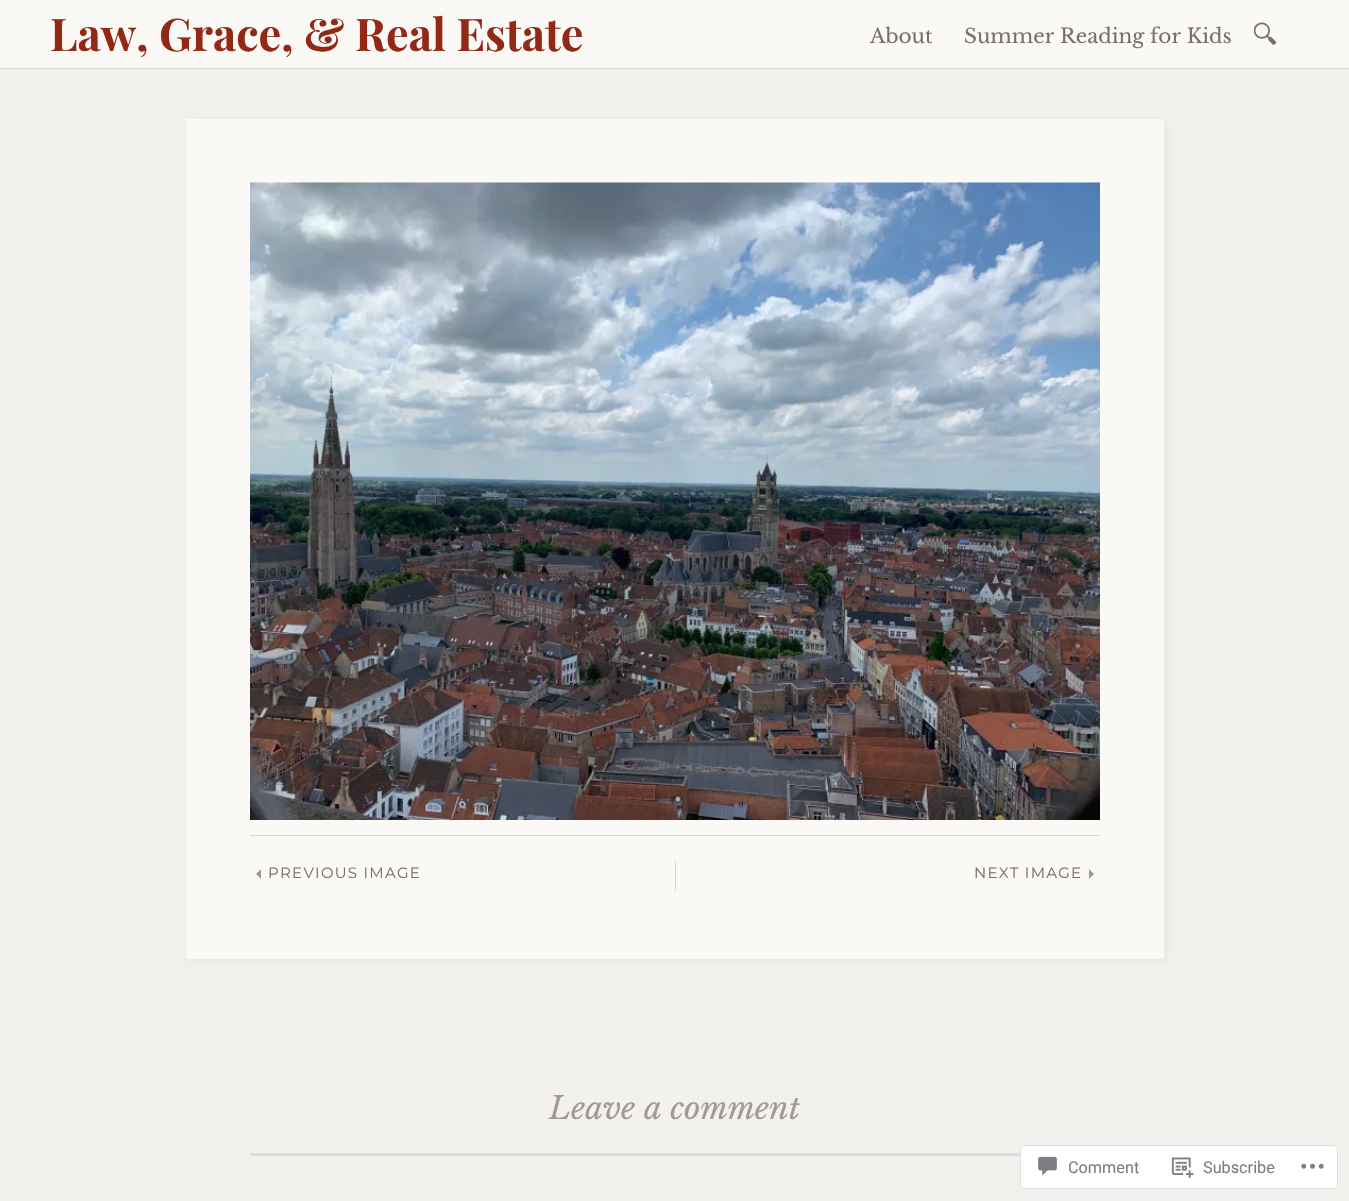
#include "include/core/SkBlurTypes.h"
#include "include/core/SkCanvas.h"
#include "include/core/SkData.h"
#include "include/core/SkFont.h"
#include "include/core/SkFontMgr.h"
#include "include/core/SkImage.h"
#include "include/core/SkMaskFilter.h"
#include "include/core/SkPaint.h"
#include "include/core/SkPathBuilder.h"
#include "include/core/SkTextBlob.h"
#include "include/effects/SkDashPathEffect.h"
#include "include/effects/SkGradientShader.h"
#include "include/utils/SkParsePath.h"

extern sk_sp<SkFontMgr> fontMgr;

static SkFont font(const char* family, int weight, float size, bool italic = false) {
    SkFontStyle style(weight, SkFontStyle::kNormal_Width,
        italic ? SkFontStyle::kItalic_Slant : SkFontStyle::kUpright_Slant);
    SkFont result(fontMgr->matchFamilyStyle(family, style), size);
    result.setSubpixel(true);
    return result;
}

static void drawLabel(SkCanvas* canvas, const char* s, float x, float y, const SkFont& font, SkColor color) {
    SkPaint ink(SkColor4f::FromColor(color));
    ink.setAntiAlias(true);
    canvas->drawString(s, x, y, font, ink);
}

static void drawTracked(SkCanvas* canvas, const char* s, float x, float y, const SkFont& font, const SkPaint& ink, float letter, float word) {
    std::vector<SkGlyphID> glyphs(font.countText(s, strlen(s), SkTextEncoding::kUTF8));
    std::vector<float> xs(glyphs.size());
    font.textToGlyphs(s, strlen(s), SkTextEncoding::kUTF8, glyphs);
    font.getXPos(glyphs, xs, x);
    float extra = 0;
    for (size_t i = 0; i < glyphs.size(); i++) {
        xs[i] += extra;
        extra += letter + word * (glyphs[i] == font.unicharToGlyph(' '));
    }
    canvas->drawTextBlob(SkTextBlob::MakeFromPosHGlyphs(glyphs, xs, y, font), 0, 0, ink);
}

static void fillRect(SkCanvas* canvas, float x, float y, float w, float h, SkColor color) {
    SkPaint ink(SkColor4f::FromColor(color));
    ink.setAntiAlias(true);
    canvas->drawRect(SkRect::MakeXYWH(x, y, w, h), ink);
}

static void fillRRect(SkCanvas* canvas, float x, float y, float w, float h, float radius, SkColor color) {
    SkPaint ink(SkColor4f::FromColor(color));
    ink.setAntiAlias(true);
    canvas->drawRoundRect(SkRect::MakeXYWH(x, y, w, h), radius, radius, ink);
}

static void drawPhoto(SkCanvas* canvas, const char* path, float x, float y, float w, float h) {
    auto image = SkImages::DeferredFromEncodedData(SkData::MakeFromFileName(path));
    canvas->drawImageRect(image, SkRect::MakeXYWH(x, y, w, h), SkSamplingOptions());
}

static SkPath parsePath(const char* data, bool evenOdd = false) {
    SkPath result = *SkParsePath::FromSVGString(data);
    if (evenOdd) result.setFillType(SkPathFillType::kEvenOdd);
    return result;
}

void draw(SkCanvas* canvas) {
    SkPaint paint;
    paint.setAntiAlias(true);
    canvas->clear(0xFFF2F1ED);
    fillRect(canvas, 0, 0, 1349, 68, 0xFFFAF9F5);
    fillRect(canvas, 0, 68, 1349, 1, 0xFFD9D6D0);
    SkFont font1 = font("Playfair Display", 700, 45);
    drawLabel(canvas, "Law, Grace, & Real Estate", 50, 51, font1, 0xFF932817);
    SkFont font2 = font("Libre Baskerville", 400, 20);
    drawLabel(canvas, "About", 870, 43, font2, 0xFF787065);
    drawLabel(canvas, "Summer Reading for Kids", 964, 43, font2, 0xFF787065);
    drawPhoto(canvas, "assets/img1.png", 1254, 22, 23, 23);
    paint.setColor(0x0D000000);
    paint.setMaskFilter(SkMaskFilter::MakeBlur(kNormal_SkBlurStyle, 4));
    canvas->drawRect(SkRect::MakeXYWH(189, 121, 977, 840), paint);
    paint.setMaskFilter(nullptr);
    fillRect(canvas, 186, 119, 978, 840, 0xFFFAF9F5);
    drawPhoto(canvas, "assets/img2.png", 250, 182, 850, 638);
    fillRect(canvas, 250, 835, 850, 1, 0xFFD9D6D0);
    paint.setColor(0xFFA09A92);
    canvas->drawPath(parsePath("M261 869V879L256 874Z"), paint);
    SkFont font3 = font("Montserrat", 100, 15);
    paint.setColor(0xFF787065);
    drawTracked(canvas, "PREVIOUS IMAGE", 268, 878, font3, paint, 1.25f, 0);
    fillRect(canvas, 675, 861, 1, 30, 0xFFD9D6D0);
    drawTracked(canvas, "NEXT IMAGE", 974, 878, font3, paint, 1.25f, 0);
    paint.setColor(0xFFA09A92);
    canvas->drawPath(parsePath("M1089 879V869L1094 874Z"), paint);
    SkFont font4 = font("Libre Baskerville", 400, 31.25f, true);
    drawLabel(canvas, "Leave a comment", 549, 1119, font4, 0xFFA09A92);
    fillRect(canvas, 250, 1153, 850, 3, 0xFFDCDCDE);
    fillRRect(canvas, 1020, 1145, 318, 44, 4, 0xFAFFFFFF);
    paint.setStroke(true);
    paint.setStrokeWidth(1);
    paint.setColor(0xFADCDCDE);
    canvas->drawRoundRect(SkRect::MakeXYWH(1020.5f, 1145.5f, 317, 43), 3.5f, 3.5f, paint);
    drawPhoto(canvas, "assets/img3.png", 1038, 1156, 19, 20);
    SkFont font5 = font("Roboto", 400, 16.25f);
    drawLabel(canvas, "Comment", 1068, 1173, font5, 0xFF7A7E84);
    drawPhoto(canvas, "assets/img4.png", 1171, 1157, 23, 21);
    drawLabel(canvas, "Subscribe", 1203, 1173, font5, 0xFF7A7E84);
    drawPhoto(canvas, "assets/img5.png", 1301, 1163, 23, 6);
}
